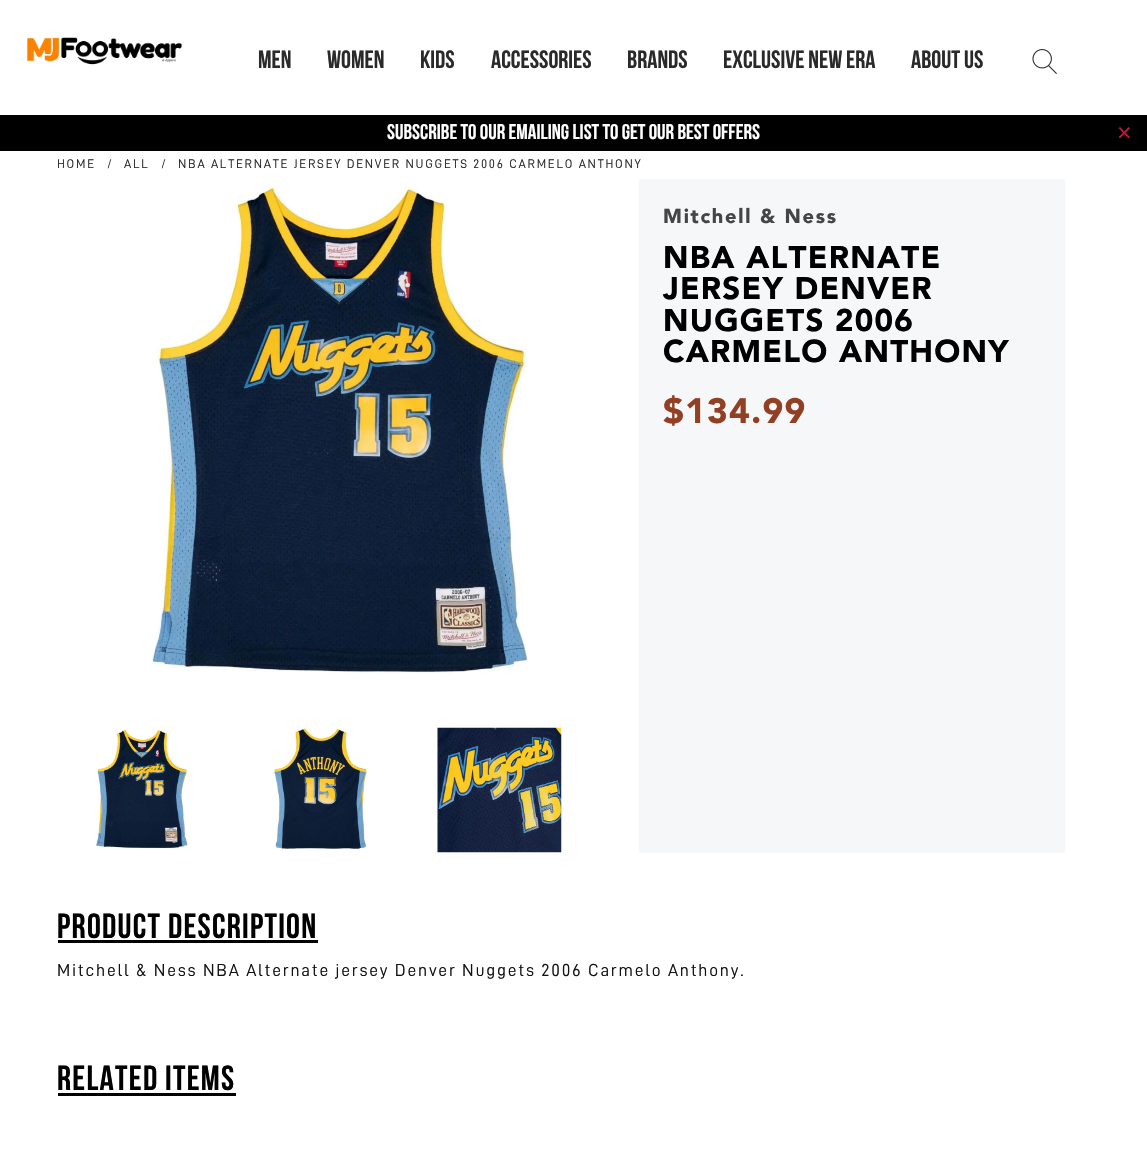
#include "include/core/SkBlurTypes.h"
#include "include/core/SkCanvas.h"
#include "include/core/SkData.h"
#include "include/core/SkFont.h"
#include "include/core/SkFontMgr.h"
#include "include/core/SkImage.h"
#include "include/core/SkMaskFilter.h"
#include "include/core/SkPaint.h"
#include "include/core/SkPathBuilder.h"
#include "include/core/SkTextBlob.h"
#include "include/effects/SkDashPathEffect.h"
#include "include/effects/SkGradientShader.h"
#include "include/utils/SkParsePath.h"

extern sk_sp<SkFontMgr> fontMgr;

static SkFont font(const char* family, int weight, float size, bool italic = false) {
    SkFontStyle style(weight, SkFontStyle::kNormal_Width,
        italic ? SkFontStyle::kItalic_Slant : SkFontStyle::kUpright_Slant);
    SkFont result(fontMgr->matchFamilyStyle(family, style), size);
    result.setSubpixel(true);
    return result;
}

static void drawLabel(SkCanvas* canvas, const char* s, float x, float y, const SkFont& font, SkColor color) {
    SkPaint ink(SkColor4f::FromColor(color));
    ink.setAntiAlias(true);
    canvas->drawString(s, x, y, font, ink);
}

static void drawTracked(SkCanvas* canvas, const char* s, float x, float y, const SkFont& font, const SkPaint& ink, float letter, float word) {
    std::vector<SkGlyphID> glyphs(font.countText(s, strlen(s), SkTextEncoding::kUTF8));
    std::vector<float> xs(glyphs.size());
    font.textToGlyphs(s, strlen(s), SkTextEncoding::kUTF8, glyphs);
    font.getXPos(glyphs, xs, x);
    float extra = 0;
    for (size_t i = 0; i < glyphs.size(); i++) {
        xs[i] += extra;
        extra += letter + word * (glyphs[i] == font.unicharToGlyph(' '));
    }
    canvas->drawTextBlob(SkTextBlob::MakeFromPosHGlyphs(glyphs, xs, y, font), 0, 0, ink);
}

static void fillRect(SkCanvas* canvas, float x, float y, float w, float h, SkColor color) {
    SkPaint ink(SkColor4f::FromColor(color));
    ink.setAntiAlias(true);
    canvas->drawRect(SkRect::MakeXYWH(x, y, w, h), ink);
}

static void drawPhoto(SkCanvas* canvas, const char* path, float x, float y, float w, float h) {
    auto image = SkImages::DeferredFromEncodedData(SkData::MakeFromFileName(path));
    canvas->drawImageRect(image, SkRect::MakeXYWH(x, y, w, h), SkSamplingOptions());
}

void draw(SkCanvas* canvas) {
    SkPaint paint;
    paint.setAntiAlias(true);
    canvas->clear(0xFFFFFFFF);
    drawPhoto(canvas, "assets/img1.png", 27, 37, 156, 28);
    SkFont font1 = font("Bebas Neue", 700, 25);
    drawLabel(canvas, "MEN", 258, 68, font1, 0xFF2B2A2A);
    drawLabel(canvas, "WOMEN", 327, 68, font1, 0xFF2B2A2A);
    drawLabel(canvas, "KIDS", 420, 68, font1, 0xFF2B2A2A);
    drawLabel(canvas, "ACCESSORIES", 491, 68, font1, 0xFF2B2A2A);
    drawLabel(canvas, "BRANDS", 627, 68, font1, 0xFF2B2A2A);
    drawLabel(canvas, "EXCLUSIVE NEW ERA", 723, 68, font1, 0xFF2B2A2A);
    drawLabel(canvas, "ABOUT US", 911, 68, font1, 0xFF2B2A2A);
    drawPhoto(canvas, "assets/img2.png", 1032, 49, 25, 25);
    fillRect(canvas, 0, 115, 1147, 36, 0xFF000000);
    SkFont font2 = font("Bebas Neue", 700, 21.25f);
    drawLabel(canvas, "Subscribe to our emailing list to get our best offers", 387, 139, font2, 0xFFFDFDFD);
    SkFont font3 = font("Liberation Sans", 400, 25);
    paint.setColor(0xFFCC1132);
    drawTracked(canvas, "×", 1117, 141, font3, paint, 1.75f, 0);
    SkFont font4 = font("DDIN", 400, 12.5f);
    paint.setColor(0xFF2B2A2A);
    drawTracked(canvas, "HOME", 57, 168, font4, paint, 1.75f, 0);
    drawTracked(canvas, "/", 107, 168, font4, paint, 1.75f, 0);
    drawTracked(canvas, "ALL", 124, 168, font4, paint, 1.75f, 0);
    drawTracked(canvas, "/", 161, 168, font4, paint, 1.75f, 0);
    drawTracked(canvas, "NBA ALTERNATE JERSEY DENVER NUGGETS 2006 CARMELO ANTHONY", 178, 168, font4, paint, 1.75f, 0);
    drawPhoto(canvas, "assets/img3.png", 151, 186, 379, 488);
    drawPhoto(canvas, "assets/img4.png", 96, 729, 92, 120);
    drawPhoto(canvas, "assets/img5.png", 273, 728, 94, 121);
    drawPhoto(canvas, "assets/img6.png", 437, 727, 125, 126);
    fillRect(canvas, 639, 179, 426, 674, 0xFFF5F7F9);
    SkFont font5 = font("Avenir", 900, 20);
    paint.setColor(0xFF454545);
    drawTracked(canvas, "Mitchell & Ness", 663, 223, font5, paint, 1.75f, 0);
    SkFont font6 = font("Avenir", 900, 31.25f);
    paint.setColor(0xFF000000);
    drawTracked(canvas, "NBA ALTERNATE", 663, 268, font6, paint, 1.25f, 0);
    drawTracked(canvas, "JERSEY DENVER", 663, 299, font6, paint, 1.25f, 0);
    drawTracked(canvas, "NUGGETS 2006", 663, 331, font6, paint, 1.25f, 0);
    drawTracked(canvas, "CARMELO ANTHONY", 663, 362, font6, paint, 1.25f, 0);
    SkFont font7 = font("Avenir", 900, 35);
    paint.setColor(0xFF923F24);
    drawTracked(canvas, "$134.99", 663, 423, font7, paint, 1.25f, 0);
    SkFont font8 = font("Bebas Neue", 700, 35);
    paint.setColor(0xFF000000);
    drawTracked(canvas, "PRODUCT DESCRIPTION", 57, 938, font8, paint, 1.25f, 0);
    fillRect(canvas, 58, 940, 260, 3, 0xFF000000);
    SkFont font9 = font("DDIN", 400, 17.5f);
    paint.setColor(0xFF121212);
    drawTracked(canvas, "Mitchell & Ness NBA Alternate jersey Denver Nuggets 2006 Carmelo Anthony.", 57, 976, font9, paint, 1.75f, 0);
    paint.setColor(0xFF000000);
    drawTracked(canvas, "RELATED ITEMS", 57, 1090, font8, paint, 1.25f, 0);
    fillRect(canvas, 58, 1093, 178, 3, 0xFF000000);
}
